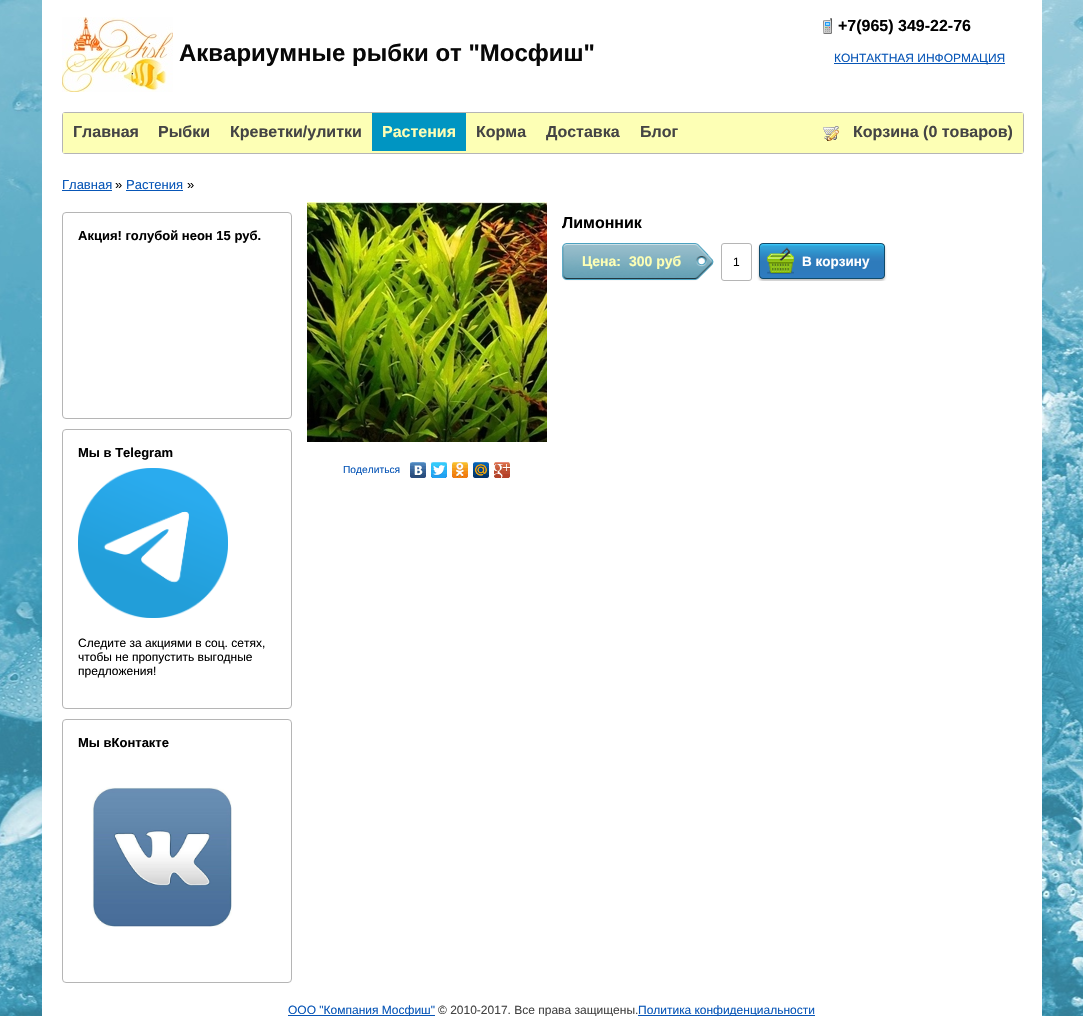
#include "include/core/SkBlurTypes.h"
#include "include/core/SkCanvas.h"
#include "include/core/SkData.h"
#include "include/core/SkFont.h"
#include "include/core/SkFontMgr.h"
#include "include/core/SkImage.h"
#include "include/core/SkMaskFilter.h"
#include "include/core/SkPaint.h"
#include "include/core/SkPathBuilder.h"
#include "include/core/SkTextBlob.h"
#include "include/effects/SkDashPathEffect.h"
#include "include/effects/SkGradientShader.h"
#include "include/utils/SkParsePath.h"

extern sk_sp<SkFontMgr> fontMgr;

static SkFont font(const char* family, int weight, float size, bool italic = false) {
    SkFontStyle style(weight, SkFontStyle::kNormal_Width,
        italic ? SkFontStyle::kItalic_Slant : SkFontStyle::kUpright_Slant);
    SkFont result(fontMgr->matchFamilyStyle(family, style), size);
    result.setSubpixel(true);
    return result;
}

static void drawLabel(SkCanvas* canvas, const char* s, float x, float y, const SkFont& font, SkColor color) {
    SkPaint ink(SkColor4f::FromColor(color));
    ink.setAntiAlias(true);
    canvas->drawString(s, x, y, font, ink);
}

static void fillRect(SkCanvas* canvas, float x, float y, float w, float h, SkColor color) {
    SkPaint ink(SkColor4f::FromColor(color));
    ink.setAntiAlias(true);
    canvas->drawRect(SkRect::MakeXYWH(x, y, w, h), ink);
}

static void drawPhoto(SkCanvas* canvas, const char* path, float x, float y, float w, float h) {
    auto image = SkImages::DeferredFromEncodedData(SkData::MakeFromFileName(path));
    canvas->drawImageRect(image, SkRect::MakeXYWH(x, y, w, h), SkSamplingOptions());
}

void draw(SkCanvas* canvas) {
    SkPaint paint;
    paint.setAntiAlias(true);
    canvas->clear(0xFFFFFFFF);
    drawPhoto(canvas, "assets/img1.png", 0, 0, 1083, 1016);
    fillRect(canvas, 42, 0, 1000, 1016, 0xFFFFFFFF);
    drawPhoto(canvas, "assets/img2.png", 62, 17, 111, 75);
    SkFont font1 = font("Liberation Sans", 700, 24);
    drawLabel(canvas, "Аквариумные рыбки от \"Мосфиш\"", 179, 61, font1, 0xFF080808);
    drawPhoto(canvas, "assets/img3.png", 823, 18, 9, 16);
    SkFont font2 = font("Liberation Sans", 700, 16);
    drawLabel(canvas, "+7(965) 349-22-76", 838, 31, font2, 0xFF000000);
    fillRect(canvas, 834, 63, 171, 1, 0xFF0856B7);
    SkFont font3 = font("Liberation Sans", 400, 12);
    drawLabel(canvas, "КОНТАКТНАЯ ИНФОРМАЦИЯ", 834, 62, font3, 0xFF0856B7);
    paint.setStroke(true);
    paint.setStrokeWidth(1);
    paint.setColor(0xFFB5B5B5);
    canvas->drawRoundRect(SkRect::MakeXYWH(62.5f, 112.5f, 961, 41), 2.5f, 2.5f, paint);
    fillRect(canvas, 63, 113, 960, 40, 0xFFFDFFB5);
    drawLabel(canvas, "Главная", 73, 137, font2, 0xFF444444);
    drawLabel(canvas, "Рыбки", 158, 137, font2, 0xFF444444);
    drawLabel(canvas, "Креветки/улитки", 230, 137, font2, 0xFF444444);
    fillRect(canvas, 372, 113, 94, 38, 0xFF0095C2);
    drawLabel(canvas, "Растения", 382, 137, font2, 0xFFFDFFB5);
    drawLabel(canvas, "Корма", 476, 137, font2, 0xFF444444);
    drawLabel(canvas, "Доставка", 546, 137, font2, 0xFF444444);
    drawLabel(canvas, "Блог", 640, 137, font2, 0xFF444444);
    drawPhoto(canvas, "assets/img4.png", 823, 126, 16, 15);
    drawLabel(canvas, "Корзина (0 товаров)", 853, 137, font2, 0xFF444444);
    SkFont font4 = font("Liberation Sans", 400, 13);
    drawLabel(canvas, "Главная", 62, 189, font4, 0xFF0856B7);
    fillRect(canvas, 62, 190, 50, 1, 0xFF0856B7);
    drawLabel(canvas, "»", 115, 189, font4, 0xFF000000);
    drawLabel(canvas, "Растения", 126, 189, font4, 0xFF0856B7);
    fillRect(canvas, 126, 190, 57, 1, 0xFF0856B7);
    drawLabel(canvas, "»", 187, 189, font4, 0xFF000000);
    canvas->drawRoundRect(SkRect::MakeXYWH(62.5f, 212.5f, 229, 206), 3.5f, 3.5f, paint);
    SkFont font5 = font("Liberation Sans", 700, 13);
    drawLabel(canvas, "Акция! голубой неон 15 руб.", 78, 240, font5, 0xFF000000);
    canvas->drawRoundRect(SkRect::MakeXYWH(62.5f, 429.5f, 229, 279), 3.5f, 3.5f, paint);
    drawLabel(canvas, "Мы в Telegram", 78, 457, font5, 0xFF000000);
    drawPhoto(canvas, "assets/img5.png", 78, 468, 150, 150);
    drawLabel(canvas, "Следите за акциями в соц. сетях,", 78, 647, font3, 0xFF000000);
    drawLabel(canvas, "чтобы не пропустить выгодные", 78, 661, font3, 0xFF000000);
    drawLabel(canvas, "предложения!", 78, 675, font3, 0xFF000000);
    canvas->drawRoundRect(SkRect::MakeXYWH(62.5f, 719.5f, 229, 263), 3.5f, 3.5f, paint);
    drawLabel(canvas, "Мы вКонтакте", 78, 747, font5, 0xFF000000);
    drawPhoto(canvas, "assets/img6.png", 92, 787, 140, 140);
    drawLabel(canvas, "Лимонник", 562, 228, font2, 0xFF000000);
    drawPhoto(canvas, "assets/img7.png", 562, 243, 152, 38);
    SkFont font6 = font("Liberation Sans", 700, 14);
    drawLabel(canvas, "Цена:", 582, 266, font6, 0xFFFDFFB5);
    drawLabel(canvas, "300 руб", 629, 266, font6, 0xFFFDFFB5);
    canvas->drawRoundRect(SkRect::MakeXYWH(721.5f, 243.5f, 30, 37), 2.5f, 2.5f, paint);
    drawLabel(canvas, "1", 733, 266, font3, 0xFF000000);
    drawPhoto(canvas, "assets/img8.png", 757, 243, 130, 38);
    SkFont font7 = font("Liberation Sans", 700, 13.5f);
    drawLabel(canvas, "В корзину", 802, 266, font7, 0xFFFFFFFF);
    drawPhoto(canvas, "assets/img9.png", 307, 202, 240, 240);
    SkFont font8 = font("Liberation Sans", 400, 10.25f);
    drawLabel(canvas, "Поделиться", 343, 473, font8, 0xFF0856B7);
    drawPhoto(canvas, "assets/img10.png", 410, 462, 16, 16);
    drawPhoto(canvas, "assets/img11.png", 431, 462, 16, 16);
    drawPhoto(canvas, "assets/img12.png", 452, 462, 16, 16);
    drawPhoto(canvas, "assets/img13.png", 473, 462, 16, 16);
    drawPhoto(canvas, "assets/img14.png", 494, 462, 16, 16);
    fillRect(canvas, 288, 1015, 147, 1, 0xFF0856B7);
    drawLabel(canvas, "ООО \"Компания Мосфиш\"", 288, 1014, font3, 0xFF0856B7);
    drawLabel(canvas, "© 2010-2017. Все права защищены.", 438, 1014, font3, 0xFF444444);
    fillRect(canvas, 638, 1015, 177, 1, 0xFF0856B7);
    drawLabel(canvas, "Политика конфиденциальности", 638, 1014, font3, 0xFF0856B7);
}
